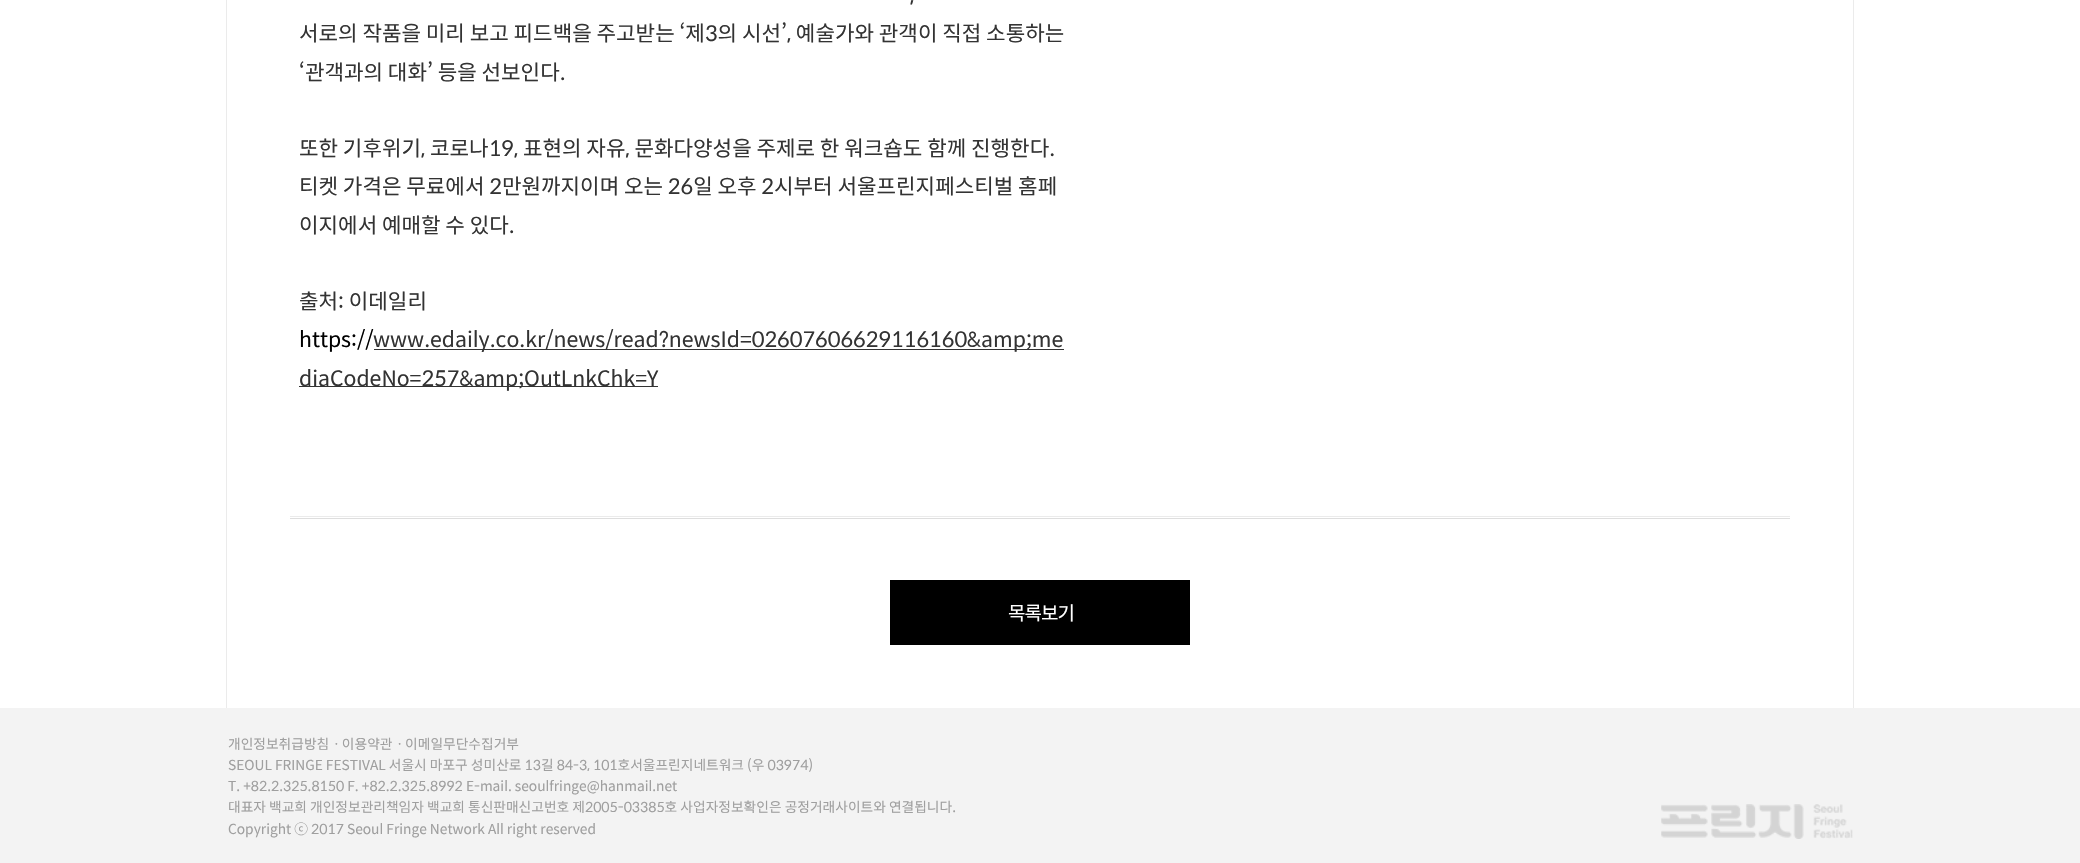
#include "include/core/SkBlurTypes.h"
#include "include/core/SkCanvas.h"
#include "include/core/SkData.h"
#include "include/core/SkFont.h"
#include "include/core/SkFontMgr.h"
#include "include/core/SkImage.h"
#include "include/core/SkMaskFilter.h"
#include "include/core/SkPaint.h"
#include "include/core/SkPathBuilder.h"
#include "include/core/SkTextBlob.h"
#include "include/effects/SkDashPathEffect.h"
#include "include/effects/SkGradientShader.h"
#include "include/utils/SkParsePath.h"

extern sk_sp<SkFontMgr> fontMgr;

static SkFont font(const char* family, int weight, float size, bool italic = false) {
    SkFontStyle style(weight, SkFontStyle::kNormal_Width,
        italic ? SkFontStyle::kItalic_Slant : SkFontStyle::kUpright_Slant);
    SkFont result(fontMgr->matchFamilyStyle(family, style), size);
    result.setSubpixel(true);
    return result;
}

static void drawLabel(SkCanvas* canvas, const char* s, float x, float y, const SkFont& font, SkColor color) {
    SkPaint ink(SkColor4f::FromColor(color));
    ink.setAntiAlias(true);
    canvas->drawString(s, x, y, font, ink);
}

static void drawTracked(SkCanvas* canvas, const char* s, float x, float y, const SkFont& font, const SkPaint& ink, float letter, float word) {
    std::vector<SkGlyphID> glyphs(font.countText(s, strlen(s), SkTextEncoding::kUTF8));
    std::vector<float> xs(glyphs.size());
    font.textToGlyphs(s, strlen(s), SkTextEncoding::kUTF8, glyphs);
    font.getXPos(glyphs, xs, x);
    float extra = 0;
    for (size_t i = 0; i < glyphs.size(); i++) {
        xs[i] += extra;
        extra += letter + word * (glyphs[i] == font.unicharToGlyph(' '));
    }
    canvas->drawTextBlob(SkTextBlob::MakeFromPosHGlyphs(glyphs, xs, y, font), 0, 0, ink);
}

static void fillRect(SkCanvas* canvas, float x, float y, float w, float h, SkColor color) {
    SkPaint ink(SkColor4f::FromColor(color));
    ink.setAntiAlias(true);
    canvas->drawRect(SkRect::MakeXYWH(x, y, w, h), ink);
}

static void drawPhoto(SkCanvas* canvas, const char* path, float x, float y, float w, float h) {
    auto image = SkImages::DeferredFromEncodedData(SkData::MakeFromFileName(path));
    canvas->drawImageRect(image, SkRect::MakeXYWH(x, y, w, h), SkSamplingOptions());
}

void draw(SkCanvas* canvas) {
    SkPaint paint;
    paint.setAntiAlias(true);
    canvas->clear(0xFFFFFFFF);
    fillRect(canvas, 1853, 0, 1, 708, 0xFFEBEBEB);
    fillRect(canvas, 226, 0, 1, 708, 0xFFEBEBEB);
    fillRect(canvas, 290, 518, 1500, 1, 0xFFDEDEDE);
    fillRect(canvas, 290, 516, 1500, 1, 0xFFEBEBEB);
    SkFont font1 = font("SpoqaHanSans", 400, 21.25f);
    drawLabel(canvas, ",", 910, 3, font1, 0xFF333333);
    drawLabel(canvas, "서로의 작품을 미리 보고 피드백을 주고받는 ‘제3의 시선’, 예술가와 관객이 직접 소통하는", 299, 41, font1, 0xFF333333);
    drawLabel(canvas, "‘관객과의 대화’ 등을 선보인다.", 299, 80, font1, 0xFF333333);
    drawLabel(canvas, "또한 기후위기, 코로나19, 표현의 자유, 문화다양성을 주제로 한 워크숍도 함께 진행한다.", 299, 156, font1, 0xFF333333);
    drawLabel(canvas, "티켓 가격은 무료에서 2만원까지이며 오는 26일 오후 2시부터 서울프린지페스티벌 홈페", 299, 194, font1, 0xFF333333);
    drawLabel(canvas, "이지에서 예매할 수 있다.", 299, 233, font1, 0xFF333333);
    drawLabel(canvas, "출처: 이데일리", 299, 309, font1, 0xFF333333);
    drawLabel(canvas, "https://", 299, 347, font1, 0xFF000000);
    fillRect(canvas, 374, 349, 690, 1, 0xFF333333);
    drawLabel(canvas, "www.edaily.co.kr/news/read?newsId=02607606629116160&amp;me", 373, 347, font1, 0xFF333333);
    fillRect(canvas, 299, 386, 359, 1, 0xFF333333);
    drawLabel(canvas, "diaCodeNo=257&amp;OutLnkChk=Y", 299, 386, font1, 0xFF333333);
    fillRect(canvas, 890, 580, 300, 65, 0xFF000000);
    SkFont font2 = font("SpoqaHanSans", 400, 19);
    paint.setColor(0xFFFFFFFF);
    drawTracked(canvas, "목록보기", 1008, 620, font2, paint, -1, 0);
    fillRect(canvas, 0, 708, 2080, 155, 0xFFF3F3F3);
    SkFont font3 = font("SpoqaHanSans", 400, 13.75f);
    drawLabel(canvas, "개인정보취급방침ㆍ이용약관ㆍ이메일무단수집거부", 228, 749, font3, 0xFF9F9F9F);
    drawLabel(canvas, "SEOUL FRINGE FESTIVAL 서울시 마포구 성미산로 13길 84-3, 101호서울프린지네트워크 (우 03974)", 228, 770, font3, 0xFF9F9F9F);
    drawLabel(canvas, "T. +82.2.325.8150 F. +82.2.325.8992 E-mail. seoulfringe@hanmail.net", 228, 791, font3, 0xFF9F9F9F);
    drawLabel(canvas, "대표자 백교희 개인정보관리책임자 백교희 통신판매신고번호 제2005-03385호 사업자정보확인은 공정거래사이트와 연결됩니다.", 228, 812, font3, 0xFF9F9F9F);
    drawLabel(canvas, "Copyright ⓒ 2017 Seoul Fringe Network All right reserved", 228, 834, font3, 0xFF9F9F9F);
    drawPhoto(canvas, "assets/img1.png", 1661, 804, 192, 35);
}
